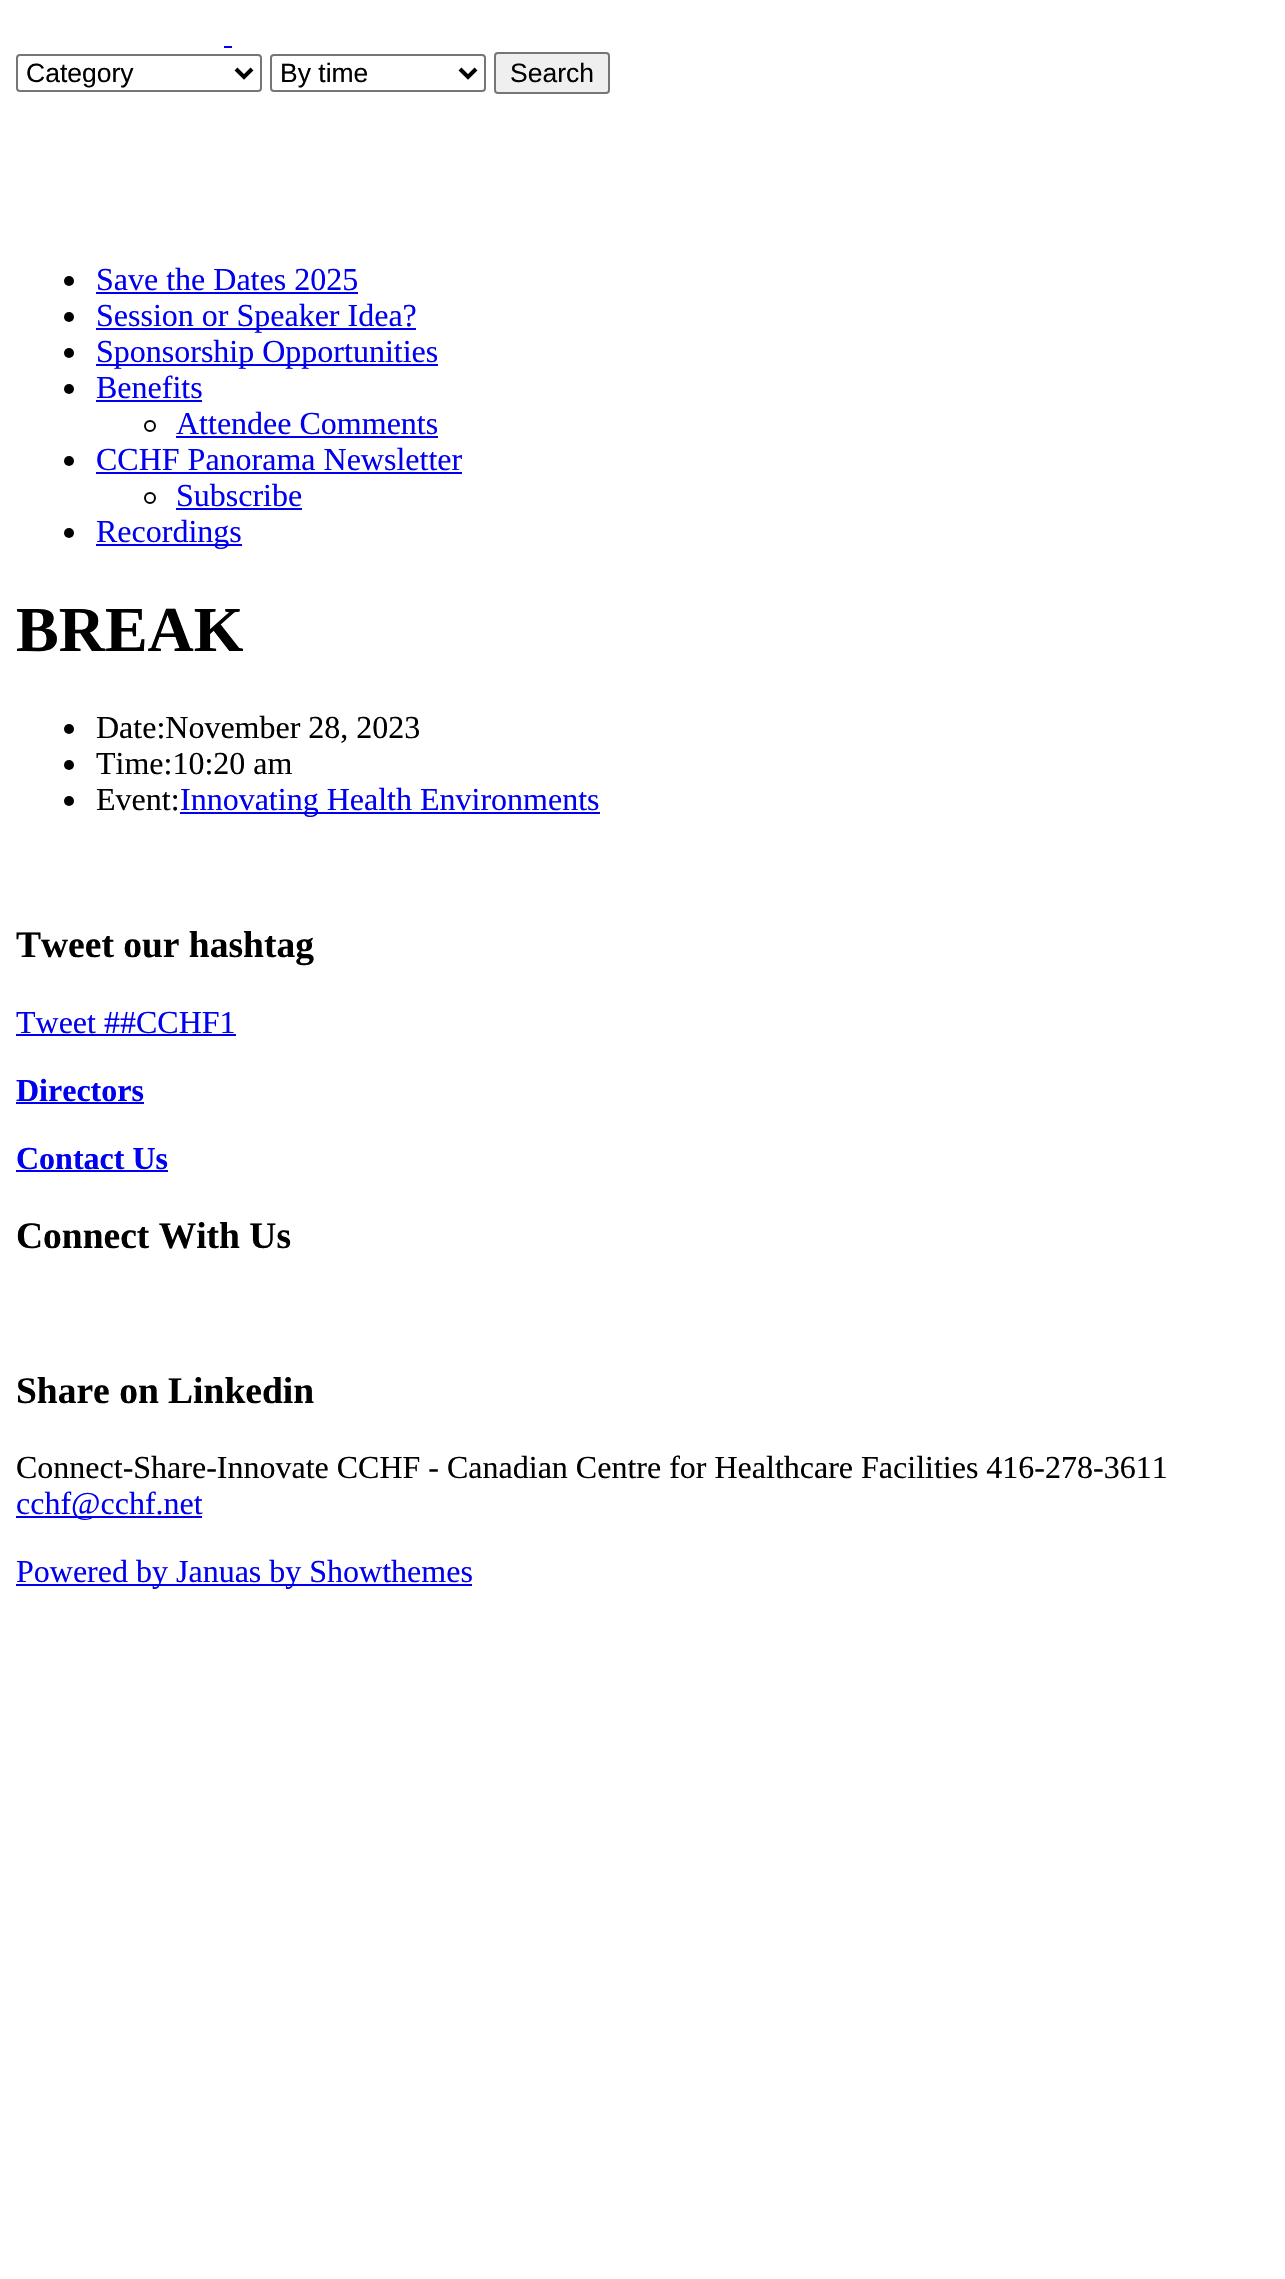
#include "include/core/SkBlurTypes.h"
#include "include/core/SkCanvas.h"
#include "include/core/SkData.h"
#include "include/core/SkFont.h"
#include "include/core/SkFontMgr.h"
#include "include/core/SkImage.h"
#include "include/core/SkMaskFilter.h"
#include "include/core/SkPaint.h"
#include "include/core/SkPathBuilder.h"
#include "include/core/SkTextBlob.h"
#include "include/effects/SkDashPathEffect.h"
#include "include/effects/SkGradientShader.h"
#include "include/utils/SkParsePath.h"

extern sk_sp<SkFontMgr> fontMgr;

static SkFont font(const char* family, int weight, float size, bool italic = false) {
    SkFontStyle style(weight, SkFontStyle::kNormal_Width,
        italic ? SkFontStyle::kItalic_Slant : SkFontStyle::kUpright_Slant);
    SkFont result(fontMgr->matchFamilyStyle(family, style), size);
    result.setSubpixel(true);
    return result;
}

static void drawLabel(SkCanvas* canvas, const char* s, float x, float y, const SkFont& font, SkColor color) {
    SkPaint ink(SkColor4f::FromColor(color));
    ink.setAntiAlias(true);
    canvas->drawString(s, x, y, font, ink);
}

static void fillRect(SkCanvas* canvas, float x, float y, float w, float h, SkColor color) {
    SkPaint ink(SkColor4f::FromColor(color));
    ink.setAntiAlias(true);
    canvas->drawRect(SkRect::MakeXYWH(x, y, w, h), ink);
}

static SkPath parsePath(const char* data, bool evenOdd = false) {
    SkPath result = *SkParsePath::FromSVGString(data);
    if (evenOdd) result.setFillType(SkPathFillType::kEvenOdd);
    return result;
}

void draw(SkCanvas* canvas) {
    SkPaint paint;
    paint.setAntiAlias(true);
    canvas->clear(0xFFFFFFFF);
    fillRect(canvas, 224, 46, 8, 2, 0xFF0000EE);
    paint.setStroke(true);
    paint.setStrokeWidth(2);
    paint.setColor(0xFF767676);
    canvas->drawRoundRect(SkRect::MakeXYWH(17, 55, 244, 36), 3, 3, paint);
    paint.setStrokeWidth(4);
    paint.setColor(0xFF000000);
    canvas->drawPath(parsePath("M236 69L244 77L252 69"), paint);
    SkFont font1 = font("Liberation Sans", 400, 26.5f);
    drawLabel(canvas, "Category", 26, 82, font1, 0xFF000000);
    paint.setStrokeWidth(2);
    paint.setColor(0xFF767676);
    canvas->drawRoundRect(SkRect::MakeXYWH(271, 55, 214, 36), 3, 3, paint);
    paint.setStrokeWidth(4);
    paint.setColor(0xFF000000);
    canvas->drawPath(parsePath("M460 69L468 77L476 69"), paint);
    drawLabel(canvas, "By time", 280, 82, font1, 0xFF000000);
    paint.setStroke(false);
    paint.setColor(0xFFEFEFEF);
    canvas->drawRoundRect(SkRect::MakeXYWH(495, 53, 114, 40), 3, 3, paint);
    paint.setStroke(true);
    paint.setStrokeWidth(2);
    paint.setColor(0xFF767676);
    canvas->drawRoundRect(SkRect::MakeXYWH(495, 53, 114, 40), 3, 3, paint);
    drawLabel(canvas, "Search", 510, 82, font1, 0xFF000000);
    paint.setStroke(false);
    paint.setColor(0xFF000000);
    canvas->drawCircle(69, 281, 5, paint);
    SkFont font2 = font("Liberation Serif", 400, 32);
    drawLabel(canvas, "Save the Dates 2025", 96, 290, font2, 0xFF0000EE);
    fillRect(canvas, 96, 292, 262, 2, 0xFF0000EE);
    canvas->drawCircle(69, 317, 5, paint);
    fillRect(canvas, 96, 328, 320, 2, 0xFF0000EE);
    drawLabel(canvas, "Session or Speaker Idea?", 96, 326, font2, 0xFF0000EE);
    canvas->drawCircle(69, 353, 5, paint);
    fillRect(canvas, 96, 364, 342, 2, 0xFF0000EE);
    drawLabel(canvas, "Sponsorship Opportunities", 96, 362, font2, 0xFF0000EE);
    canvas->drawCircle(69, 389, 5, paint);
    drawLabel(canvas, "Benefits", 96, 398, font2, 0xFF0000EE);
    fillRect(canvas, 96, 400, 106, 2, 0xFF0000EE);
    paint.setStroke(true);
    canvas->drawCircle(150, 426, 5, paint);
    drawLabel(canvas, "Attendee Comments", 176, 434, font2, 0xFF0000EE);
    fillRect(canvas, 176, 436, 262, 2, 0xFF0000EE);
    paint.setStroke(false);
    canvas->drawCircle(69, 461, 5, paint);
    drawLabel(canvas, "CCHF Panorama Newsletter", 96, 470, font2, 0xFF0000EE);
    fillRect(canvas, 96, 472, 366, 2, 0xFF0000EE);
    paint.setStroke(true);
    canvas->drawCircle(150, 498, 5, paint);
    drawLabel(canvas, "Subscribe", 176, 506, font2, 0xFF0000EE);
    fillRect(canvas, 176, 508, 126, 2, 0xFF0000EE);
    paint.setStroke(false);
    canvas->drawCircle(69, 533, 5, paint);
    fillRect(canvas, 96, 544, 146, 2, 0xFF0000EE);
    drawLabel(canvas, "Recordings", 96, 542, font2, 0xFF0000EE);
    SkFont font3 = font("Liberation Serif", 700, 64);
    drawLabel(canvas, "BREAK", 16, 651, font3, 0xFF000000);
    canvas->drawCircle(69, 729, 5, paint);
    drawLabel(canvas, "Date:November 28, 2023", 96, 738, font2, 0xFF000000);
    canvas->drawCircle(69, 765, 5, paint);
    drawLabel(canvas, "Time:10:20 am", 96, 774, font2, 0xFF000000);
    canvas->drawCircle(69, 801, 5, paint);
    drawLabel(canvas, "Event:", 96, 810, font2, 0xFF000000);
    fillRect(canvas, 180, 812, 420, 2, 0xFF0000EE);
    drawLabel(canvas, "Innovating Health Environments", 180, 810, font2, 0xFF0000EE);
    SkFont font4 = font("Liberation Serif", 700, 37.5f);
    drawLabel(canvas, "Tweet our hashtag", 16, 957, font4, 0xFF000000);
    drawLabel(canvas, "Tweet ##CCHF1", 16, 1033, font2, 0xFF0000EE);
    fillRect(canvas, 16, 1034, 220, 2, 0xFF0000EE);
    SkFont font5 = font("Liberation Serif", 700, 32);
    drawLabel(canvas, "Directors", 16, 1101, font5, 0xFF0000EE);
    fillRect(canvas, 16, 1102, 128, 2, 0xFF0000EE);
    drawLabel(canvas, "Contact Us", 16, 1169, font5, 0xFF0000EE);
    fillRect(canvas, 16, 1170, 152, 2, 0xFF0000EE);
    drawLabel(canvas, "Connect With Us", 16, 1248, font4, 0xFF000000);
    drawLabel(canvas, "Share on Linkedin", 16, 1403, font4, 0xFF000000);
    drawLabel(canvas, "Connect-Share-Innovate CCHF - Canadian Centre for Healthcare Facilities 416-278-3611", 16, 1478, font2, 0xFF000000);
    fillRect(canvas, 16, 1516, 186, 2, 0xFF0000EE);
    drawLabel(canvas, "cchf@cchf.net", 16, 1514, font2, 0xFF0000EE);
    fillRect(canvas, 16, 1584, 456, 2, 0xFF0000EE);
    drawLabel(canvas, "Powered by Januas by Showthemes", 16, 1582, font2, 0xFF0000EE);
}
